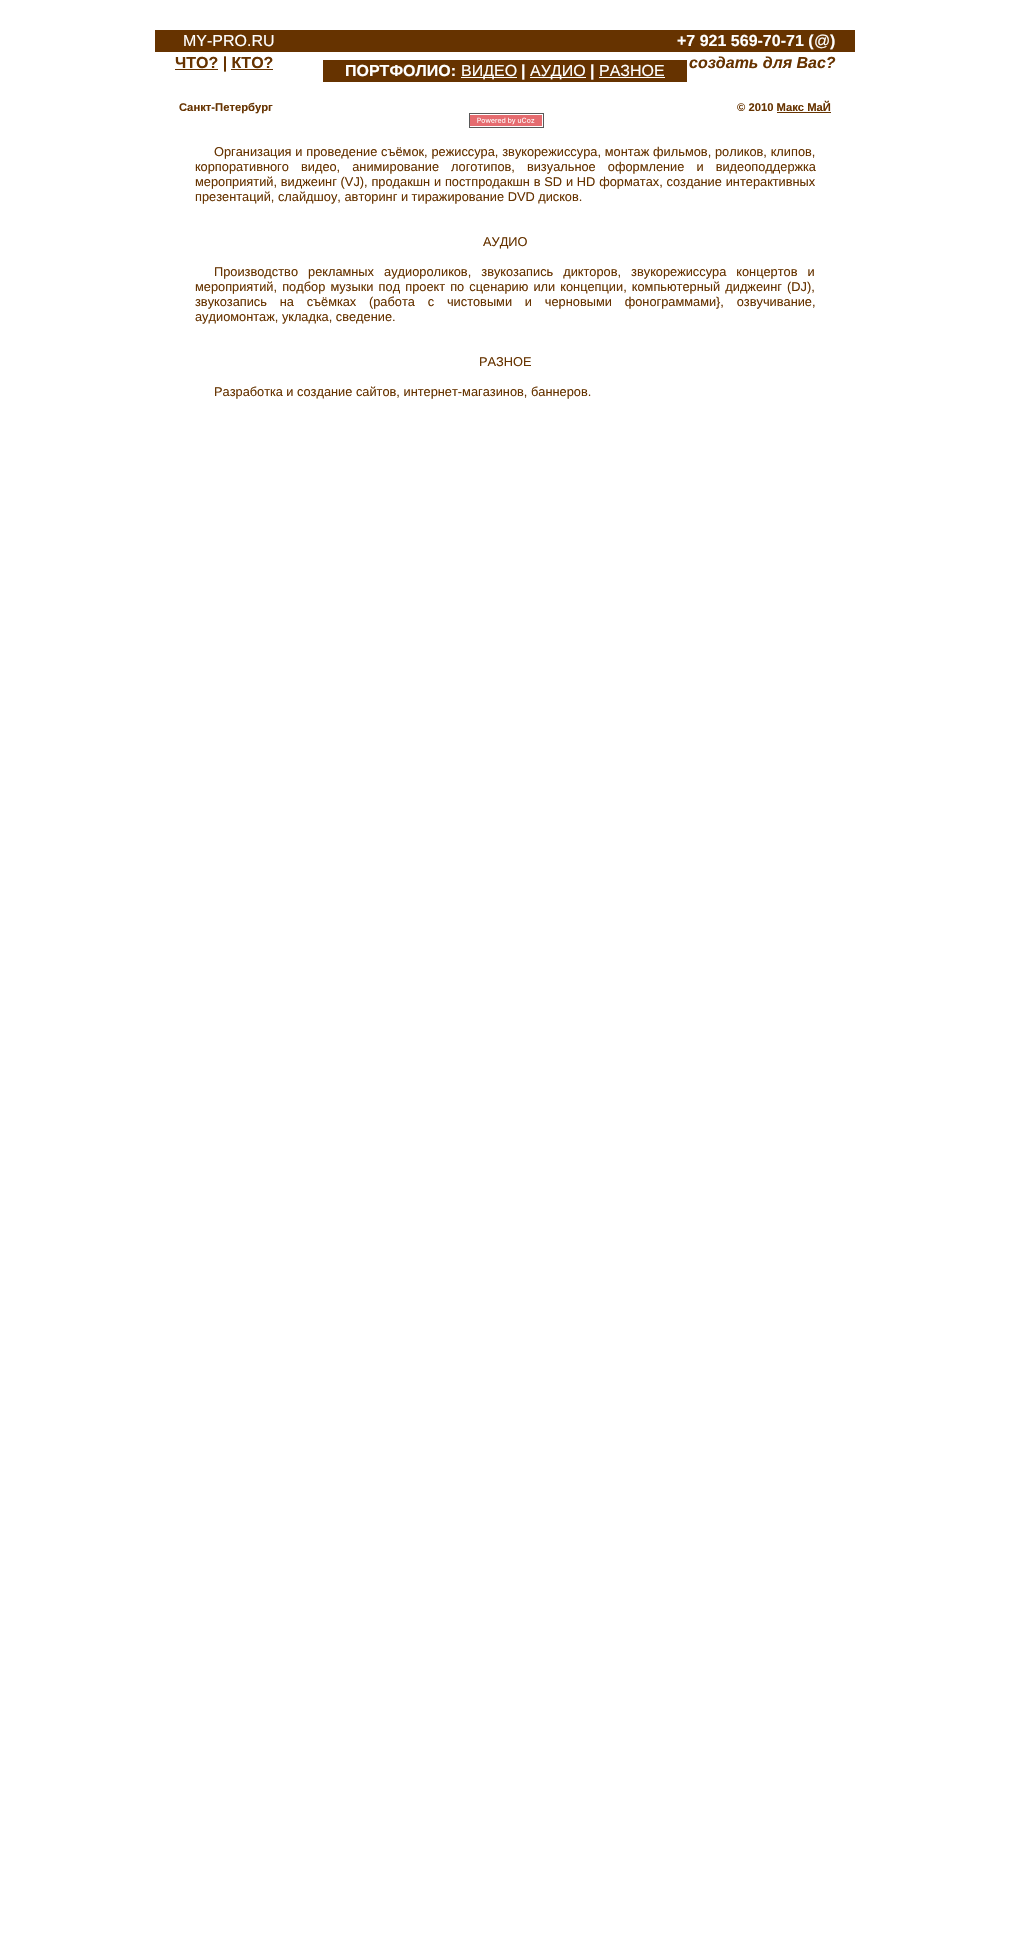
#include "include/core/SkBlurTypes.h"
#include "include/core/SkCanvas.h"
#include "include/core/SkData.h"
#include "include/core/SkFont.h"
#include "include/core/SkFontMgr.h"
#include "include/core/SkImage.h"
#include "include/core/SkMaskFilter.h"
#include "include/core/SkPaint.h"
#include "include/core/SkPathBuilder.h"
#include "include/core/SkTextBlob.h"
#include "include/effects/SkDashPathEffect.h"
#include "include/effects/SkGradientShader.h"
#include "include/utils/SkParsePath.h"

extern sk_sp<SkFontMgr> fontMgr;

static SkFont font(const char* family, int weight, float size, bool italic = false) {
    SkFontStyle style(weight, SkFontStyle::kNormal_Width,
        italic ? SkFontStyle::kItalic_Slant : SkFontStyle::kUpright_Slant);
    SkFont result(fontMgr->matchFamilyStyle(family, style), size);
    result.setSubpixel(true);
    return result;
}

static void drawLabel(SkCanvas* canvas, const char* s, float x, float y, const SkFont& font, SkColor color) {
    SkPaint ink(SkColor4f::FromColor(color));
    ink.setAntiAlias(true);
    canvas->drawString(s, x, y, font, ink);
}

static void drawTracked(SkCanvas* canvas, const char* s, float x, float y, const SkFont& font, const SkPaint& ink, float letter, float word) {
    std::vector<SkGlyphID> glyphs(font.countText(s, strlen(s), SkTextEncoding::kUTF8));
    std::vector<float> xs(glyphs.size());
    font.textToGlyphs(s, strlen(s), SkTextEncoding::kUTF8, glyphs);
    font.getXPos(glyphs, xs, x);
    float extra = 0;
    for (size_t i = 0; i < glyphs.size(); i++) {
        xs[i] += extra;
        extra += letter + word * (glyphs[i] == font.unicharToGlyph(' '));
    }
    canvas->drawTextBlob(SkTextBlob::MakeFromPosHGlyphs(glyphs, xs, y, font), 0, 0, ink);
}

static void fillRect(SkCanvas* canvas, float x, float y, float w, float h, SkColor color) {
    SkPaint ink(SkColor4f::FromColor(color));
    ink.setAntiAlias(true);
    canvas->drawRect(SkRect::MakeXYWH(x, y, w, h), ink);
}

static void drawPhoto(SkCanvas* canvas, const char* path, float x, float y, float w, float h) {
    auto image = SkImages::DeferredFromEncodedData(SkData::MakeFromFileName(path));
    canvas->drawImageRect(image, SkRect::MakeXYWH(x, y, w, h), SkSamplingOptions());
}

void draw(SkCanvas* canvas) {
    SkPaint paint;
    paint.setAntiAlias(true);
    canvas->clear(0xFFFFFFFF);
    fillRect(canvas, 155, 30, 700, 22, 0xFF663300);
    SkFont font1 = font("Liberation Sans", 400, 16);
    drawLabel(canvas, "MY-PRO.RU", 183, 46, font1, 0xFFFFFFFF);
    SkFont font2 = font("Liberation Sans", 700, 16);
    drawLabel(canvas, "+7 921 569-70-71 (", 677, 46, font2, 0xFFFFFFFF);
    drawLabel(canvas, "@", 814, 46, font1, 0xFFFFFFFF);
    drawLabel(canvas, ")", 830, 46, font2, 0xFFFFFFFF);
    fillRect(canvas, 175, 69, 43, 1, 0xFF663300);
    drawLabel(canvas, "ЧТО? | КТО?", 175, 68, font2, 0xFF663300);
    fillRect(canvas, 231, 69, 42, 1, 0xFF663300);
    SkFont font3 = font("Liberation Sans", 700, 16, true);
    drawLabel(canvas, "создать для Вас?", 689, 68, font3, 0xFF663300);
    SkFont font4 = font("Liberation Sans", 400, 12.8f);
    paint.setColor(0xFF663300);
    drawTracked(canvas, "Организация и проведение съёмок, режиссура, звукорежиссура, монтаж фильмов, роликов, клипов,", 214, 156, font4, paint, 0, 0.25f);
    drawTracked(canvas, "корпоративного видео, анимирование логотипов, визуальное оформление и видеоподдержка", 195, 171, font4, paint, 0, 8.5f);
    drawTracked(canvas, "мероприятий, виджеинг (VJ), продакшн и постпродакшн в SD и HD форматах, создание интерактивных", 195, 186, font4, paint, 0, 0.25f);
    drawLabel(canvas, "презентаций, слайдшоу, авторинг и тиражирование DVD дисков.", 195, 201, font4, 0xFF663300);
    drawLabel(canvas, "АУДИО", 483, 246, font4, 0xFF663300);
    drawTracked(canvas, "Производство рекламных аудиороликов, звукозапись дикторов, звукорежиссура концертов и", 214, 276, font4, paint, 0, 6.5f);
    drawTracked(canvas, "мероприятий, подбор музыки под проект по сценарию или концепции, компьютерный диджеинг (DJ),", 195, 291, font4, paint, 0, 1.6f);
    drawTracked(canvas, "звукозапись на съёмках (работа с чистовыми и черновыми фонограммами}, озвучивание,", 195, 306, font4, paint, 0, 9.25f);
    drawLabel(canvas, "аудиомонтаж, укладка, сведение.", 195, 321, font4, 0xFF663300);
    drawLabel(canvas, "РАЗНОЕ", 479, 366, font4, 0xFF663300);
    drawLabel(canvas, "Разработка и создание сайтов, интернет-магазинов, баннеров.", 214, 396, font4, 0xFF663300);
    fillRect(canvas, 323, 60, 364, 22, 0xFF663300);
    drawLabel(canvas, "ПОРТФОЛИО:", 345, 76, font2, 0xFFFFFFFF);
    fillRect(canvas, 461, 77, 56, 1, 0xFFFFFFFF);
    drawLabel(canvas, "ВИДЕО", 461, 76, font1, 0xFFFFFFFF);
    drawLabel(canvas, "|", 521, 76, font2, 0xFFFFFFFF);
    fillRect(canvas, 530, 77, 56, 1, 0xFFFFFFFF);
    drawLabel(canvas, "АУДИО", 530, 76, font1, 0xFFFFFFFF);
    drawLabel(canvas, "|", 590, 76, font2, 0xFFFFFFFF);
    drawLabel(canvas, "РАЗНОЕ", 599, 76, font1, 0xFFFFFFFF);
    fillRect(canvas, 599, 77, 66, 1, 0xFFFFFFFF);
    SkFont font5 = font("Liberation Sans", 700, 11.25f);
    drawLabel(canvas, "Санкт-Петербург", 179, 111, font5, 0xFF663300);
    drawLabel(canvas, "© 2010 Макс МаЙ", 737, 111, font5, 0xFF663300);
    fillRect(canvas, 777, 112, 54, 1, 0xFF663300);
    drawPhoto(canvas, "assets/img1.png", 469, 113, 75, 15);
}
